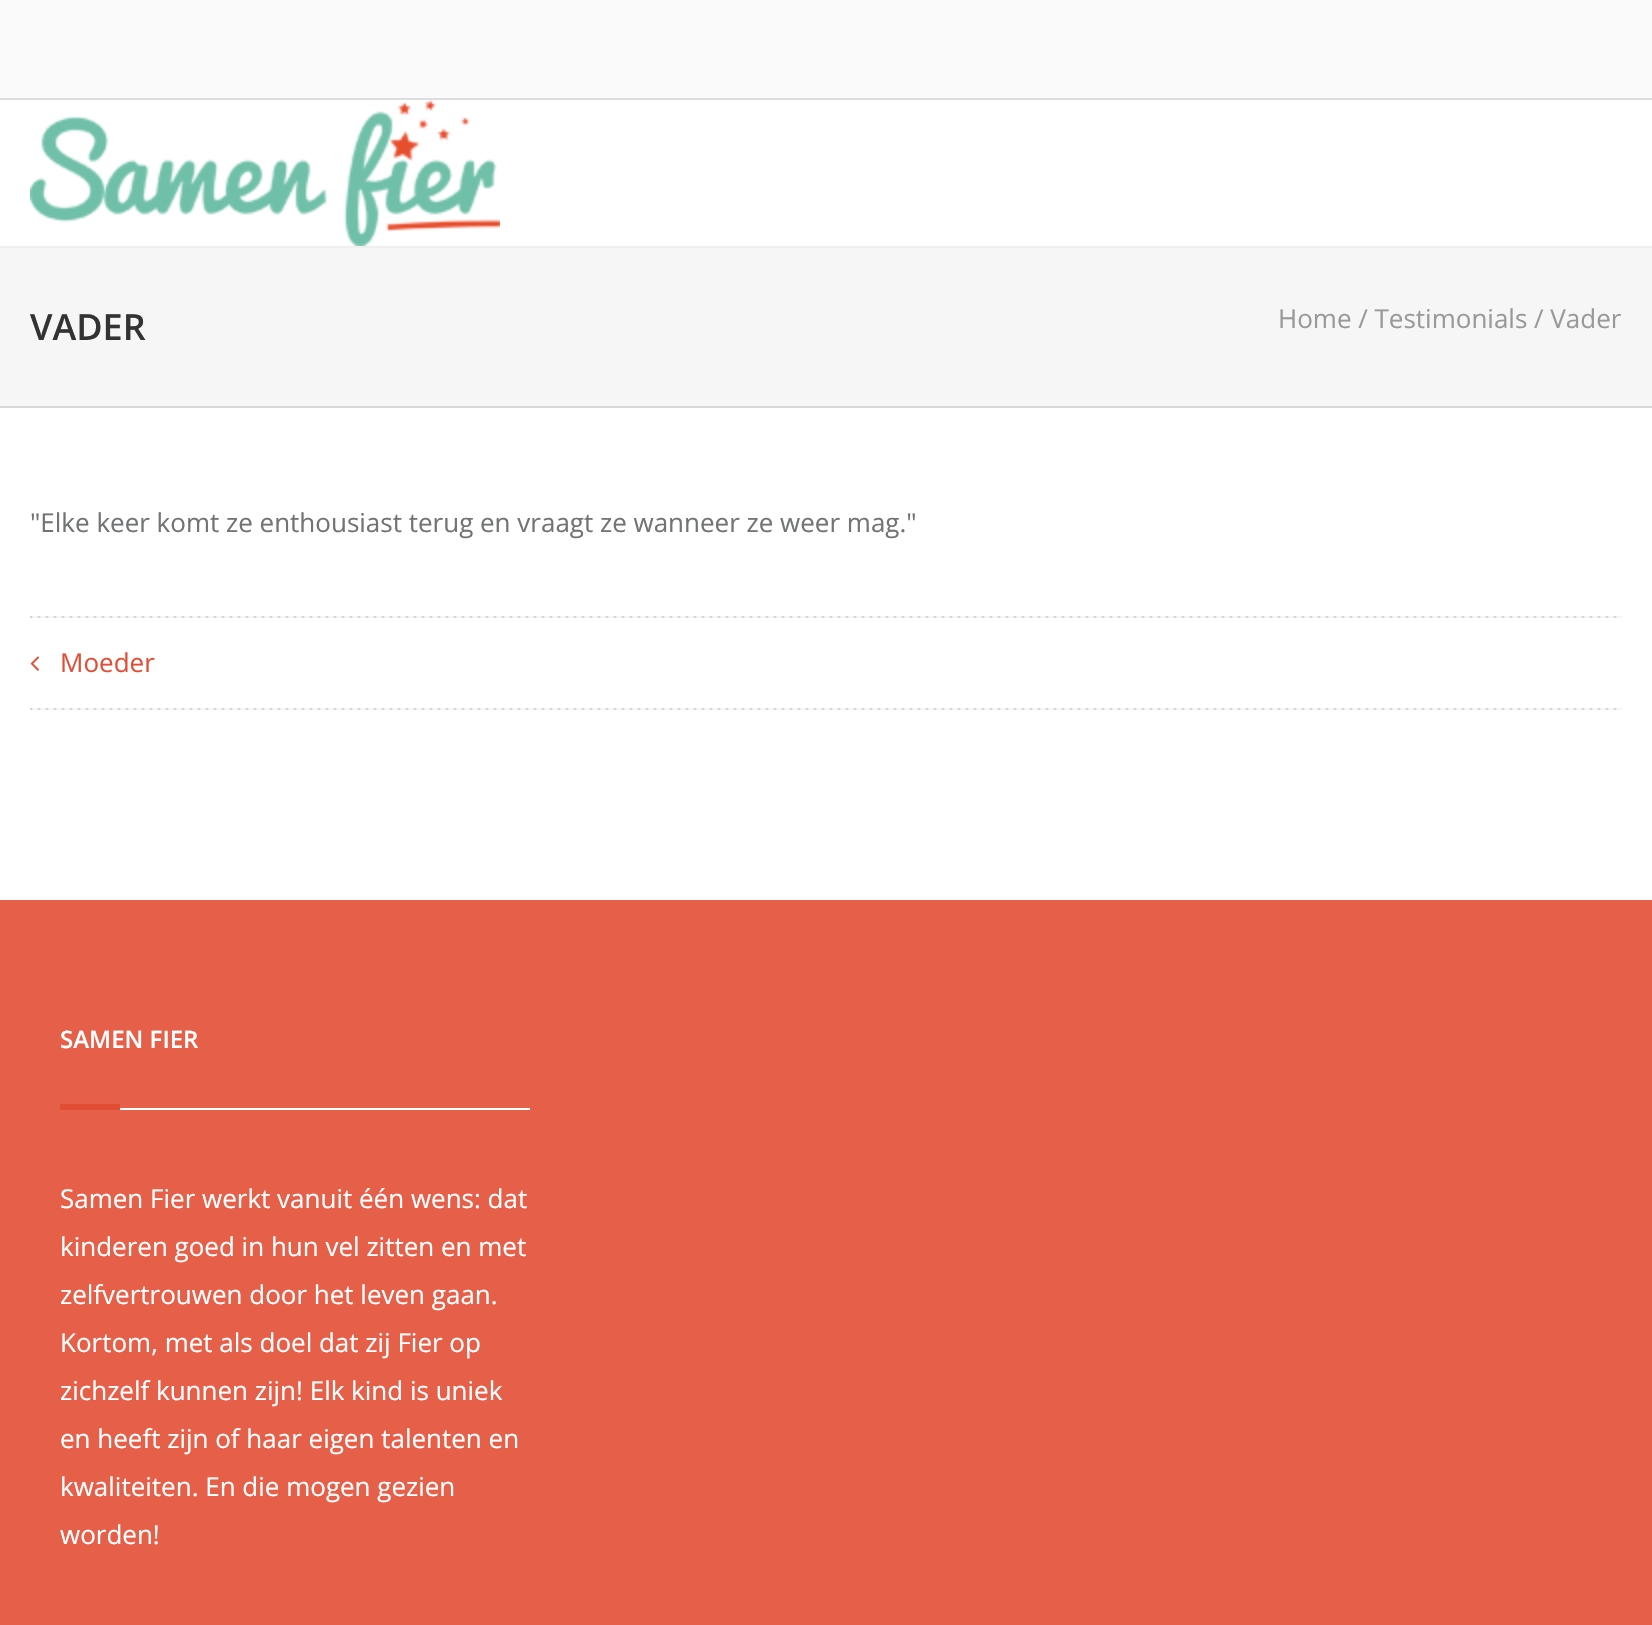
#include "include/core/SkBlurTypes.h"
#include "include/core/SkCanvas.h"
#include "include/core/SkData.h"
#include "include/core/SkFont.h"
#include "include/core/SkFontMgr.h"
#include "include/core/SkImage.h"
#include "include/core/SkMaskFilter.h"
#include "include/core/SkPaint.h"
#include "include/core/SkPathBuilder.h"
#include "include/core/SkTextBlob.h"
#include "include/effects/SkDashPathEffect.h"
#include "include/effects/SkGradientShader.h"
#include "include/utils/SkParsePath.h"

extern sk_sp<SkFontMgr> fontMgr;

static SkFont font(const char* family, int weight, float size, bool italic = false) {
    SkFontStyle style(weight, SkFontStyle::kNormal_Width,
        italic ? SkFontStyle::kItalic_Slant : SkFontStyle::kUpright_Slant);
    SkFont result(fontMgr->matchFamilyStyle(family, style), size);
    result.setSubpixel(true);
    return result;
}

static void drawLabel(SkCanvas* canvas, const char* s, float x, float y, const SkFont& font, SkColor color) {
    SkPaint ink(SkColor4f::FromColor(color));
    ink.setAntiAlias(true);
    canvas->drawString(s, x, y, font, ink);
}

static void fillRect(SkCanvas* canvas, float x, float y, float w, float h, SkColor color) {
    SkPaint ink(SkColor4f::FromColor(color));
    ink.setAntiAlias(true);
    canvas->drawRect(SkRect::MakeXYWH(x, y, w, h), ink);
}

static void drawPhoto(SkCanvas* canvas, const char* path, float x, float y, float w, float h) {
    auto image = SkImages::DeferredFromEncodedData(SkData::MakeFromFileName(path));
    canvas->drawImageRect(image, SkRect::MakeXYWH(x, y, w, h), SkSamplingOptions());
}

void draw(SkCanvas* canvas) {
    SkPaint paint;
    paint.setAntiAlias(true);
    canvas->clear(0xFFFFFFFF);
    fillRect(canvas, 0, 0, 1652, 98, 0xFFFAFAFA);
    fillRect(canvas, 0, 98, 1652, 2, 0xFFDDDDDD);
    fillRect(canvas, 0, 246, 1652, 2, 0xFFEFEFEF);
    drawPhoto(canvas, "assets/img1.png", 30, 100, 470, 146);
    fillRect(canvas, 0, 248, 1652, 158, 0xFFF6F6F6);
    fillRect(canvas, 0, 406, 1652, 2, 0xFFD8D8D8);
    SkFont font1 = font("Open Sans", 600, 36);
    drawLabel(canvas, "VADER", 30, 340, font1, 0xFF333333);
    SkFont font2 = font("Open Sans", 400, 26);
    drawLabel(canvas, "Home / Testimonials / Vader", 1278, 328, font2, 0xFF999999);
    drawLabel(canvas, "\"Elke keer komt ze enthousiast terug en vraagt ze wanneer ze weer mag.\"", 30, 532, font2, 0xFF717375);
    drawPhoto(canvas, "assets/img2.png", 30, 616, 1592, 2);
    drawPhoto(canvas, "assets/img3.png", 30, 656, 10, 15);
    drawLabel(canvas, "Moeder", 60, 672, font2, 0xFFE24E35);
    drawPhoto(canvas, "assets/img2.png", 30, 708, 1592, 2);
    fillRect(canvas, 0, 900, 1652, 725, 0xFFE65F49);
    SkFont font3 = font("Open Sans", 600, 24);
    drawLabel(canvas, "SAMEN FIER", 60, 1048, font3, 0xFFFFFFFF);
    fillRect(canvas, 120, 1108, 410, 2, 0xFFFFFFFF);
    fillRect(canvas, 60, 1104, 60, 6, 0xFFE24E35);
    drawLabel(canvas, "Samen Fier werkt vanuit één wens: dat", 60, 1208, font2, 0xFFFFFFFF);
    drawLabel(canvas, "kinderen goed in hun vel zitten en met", 60, 1256, font2, 0xFFFFFFFF);
    drawLabel(canvas, "zelfvertrouwen door het leven gaan.", 60, 1304, font2, 0xFFFFFFFF);
    drawLabel(canvas, "Kortom, met als doel dat zij Fier op", 60, 1352, font2, 0xFFFFFFFF);
    drawLabel(canvas, "zichzelf kunnen zijn! Elk kind is uniek", 60, 1400, font2, 0xFFFFFFFF);
    drawLabel(canvas, "en heeft zijn of haar eigen talenten en", 60, 1448, font2, 0xFFFFFFFF);
    drawLabel(canvas, "kwaliteiten. En die mogen gezien", 60, 1496, font2, 0xFFFFFFFF);
    drawLabel(canvas, "worden!", 60, 1544, font2, 0xFFFFFFFF);
}
